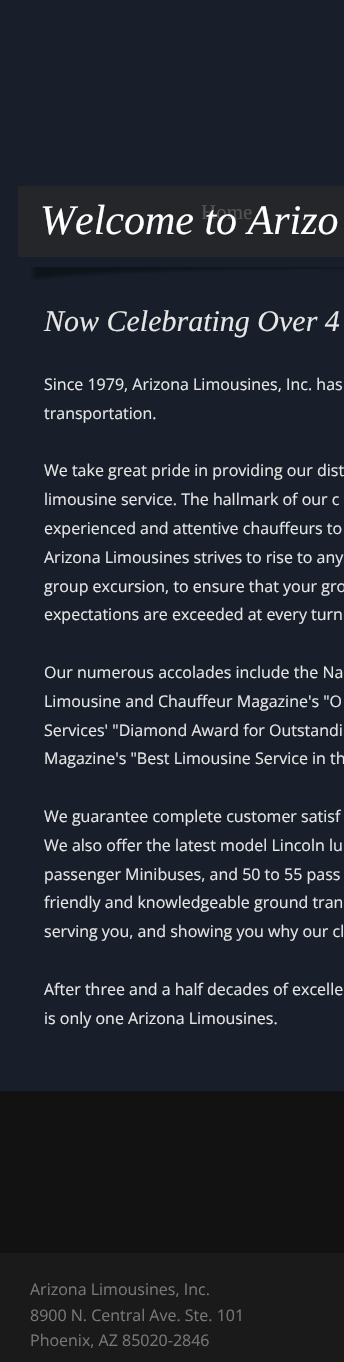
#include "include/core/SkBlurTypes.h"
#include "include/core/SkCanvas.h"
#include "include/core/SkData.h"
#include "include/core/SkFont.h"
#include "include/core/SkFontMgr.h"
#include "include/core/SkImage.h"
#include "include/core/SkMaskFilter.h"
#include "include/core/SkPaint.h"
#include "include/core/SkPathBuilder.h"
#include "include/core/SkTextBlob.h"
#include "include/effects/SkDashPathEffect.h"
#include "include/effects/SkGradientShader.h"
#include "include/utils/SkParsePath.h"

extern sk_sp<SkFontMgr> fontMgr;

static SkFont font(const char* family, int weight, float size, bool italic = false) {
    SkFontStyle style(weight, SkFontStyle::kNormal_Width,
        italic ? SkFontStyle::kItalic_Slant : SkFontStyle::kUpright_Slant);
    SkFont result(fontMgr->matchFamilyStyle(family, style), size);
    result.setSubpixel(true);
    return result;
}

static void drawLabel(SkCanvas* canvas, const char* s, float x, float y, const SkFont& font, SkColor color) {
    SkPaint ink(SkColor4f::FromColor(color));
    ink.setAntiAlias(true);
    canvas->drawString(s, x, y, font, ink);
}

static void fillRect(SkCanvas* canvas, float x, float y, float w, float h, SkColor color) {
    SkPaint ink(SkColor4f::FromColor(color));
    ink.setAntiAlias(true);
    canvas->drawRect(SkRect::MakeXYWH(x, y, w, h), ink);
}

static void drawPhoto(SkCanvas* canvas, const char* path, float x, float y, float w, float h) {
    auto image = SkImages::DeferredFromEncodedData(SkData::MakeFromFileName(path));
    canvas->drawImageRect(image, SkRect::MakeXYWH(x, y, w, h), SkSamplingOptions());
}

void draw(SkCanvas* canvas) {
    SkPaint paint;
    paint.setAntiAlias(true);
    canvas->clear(0xFF181F2B);
    fillRect(canvas, 18, 186, 326, 71, 0xFF252629);
    SkFont font1 = font("Liberation Serif", 400, 21);
    drawLabel(canvas, "Home", 201, 219, font1, 0xFF535353);
    SkFont font2 = font("Liberation Serif", 400, 42, true);
    drawLabel(canvas, "Welcome to Arizo", 40, 234, font2, 0xFFFFFFFF);
    drawPhoto(canvas, "assets/img1.png", 31, 267, 313, 13);
    SkFont font3 = font("Liberation Serif", 400, 30, true);
    drawLabel(canvas, "Now Celebrating Over 4", 44, 331, font3, 0xFFE6E6E6);
    SkFont font4 = font("Open Sans", 400, 16);
    drawLabel(canvas, "Since 1979, Arizona Limousines, Inc. has", 44, 390, font4, 0xFFE6E6E6);
    drawLabel(canvas, "transportation.", 44, 419, font4, 0xFFE6E6E6);
    drawLabel(canvas, "We take great pride in providing our dist", 44, 476, font4, 0xFFE6E6E6);
    drawLabel(canvas, "limousine service. The hallmark of our c", 44, 505, font4, 0xFFE6E6E6);
    drawLabel(canvas, "experienced and attentive chauffeurs to", 44, 534, font4, 0xFFE6E6E6);
    drawLabel(canvas, "Arizona Limousines strives to rise to any", 44, 563, font4, 0xFFE6E6E6);
    drawLabel(canvas, "group excursion, to ensure that your gro", 44, 592, font4, 0xFFE6E6E6);
    drawLabel(canvas, "expectations are exceeded at every turn", 44, 620, font4, 0xFFE6E6E6);
    drawLabel(canvas, "Our numerous accolades include the Na", 44, 678, font4, 0xFFE6E6E6);
    drawLabel(canvas, "Limousine and Chauffeur Magazine's \"O", 44, 707, font4, 0xFFE6E6E6);
    drawLabel(canvas, "Services' \"Diamond Award for Outstandi", 44, 736, font4, 0xFFE6E6E6);
    drawLabel(canvas, "Magazine's \"Best Limousine Service in th", 44, 764, font4, 0xFFE6E6E6);
    drawLabel(canvas, "We guarantee complete customer satisf", 44, 822, font4, 0xFFE6E6E6);
    drawLabel(canvas, "We also offer the latest model Lincoln lu", 44, 851, font4, 0xFFE6E6E6);
    drawLabel(canvas, "passenger Minibuses, and 50 to 55 pass", 44, 880, font4, 0xFFE6E6E6);
    drawLabel(canvas, "friendly and knowledgeable ground tran", 44, 908, font4, 0xFFE6E6E6);
    drawLabel(canvas, "serving you, and showing you why our cl", 44, 937, font4, 0xFFE6E6E6);
    drawLabel(canvas, "After three and a half decades of excelle", 44, 995, font4, 0xFFE6E6E6);
    drawLabel(canvas, "is only one Arizona Limousines.", 44, 1024, font4, 0xFFE6E6E6);
    fillRect(canvas, 0, 1253, 344, 109, 0xFF1A1A1A);
    fillRect(canvas, 0, 1091, 344, 162, 0xFF121212);
    drawLabel(canvas, "Arizona Limousines, Inc.", 30, 1295, font4, 0xFF777777);
    drawLabel(canvas, "8900 N. Central Ave. Ste. 101", 30, 1321, font4, 0xFF777777);
    drawLabel(canvas, "Phoenix, AZ 85020-2846", 30, 1346, font4, 0xFF777777);
}
